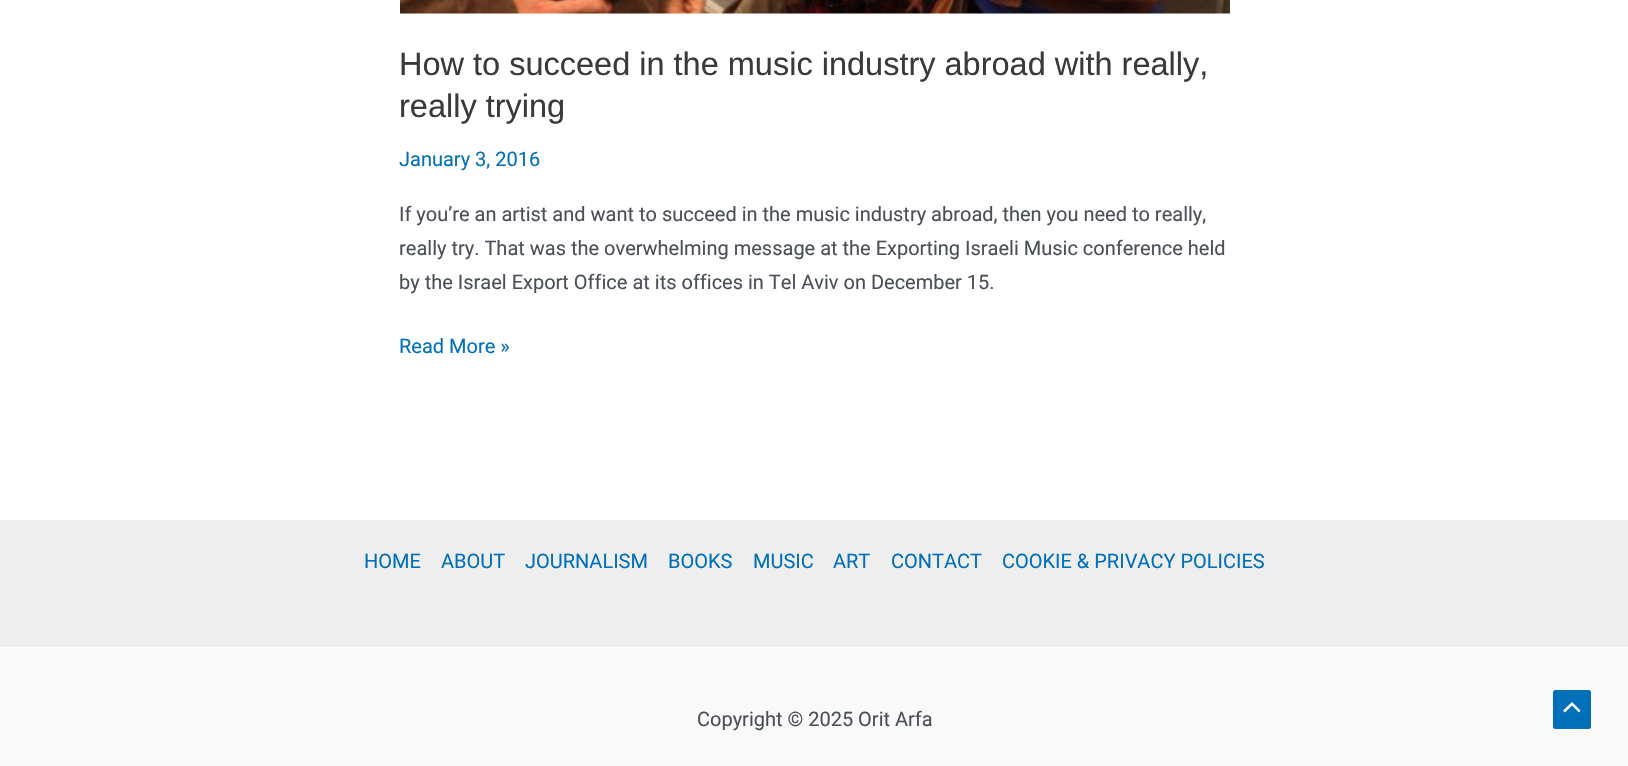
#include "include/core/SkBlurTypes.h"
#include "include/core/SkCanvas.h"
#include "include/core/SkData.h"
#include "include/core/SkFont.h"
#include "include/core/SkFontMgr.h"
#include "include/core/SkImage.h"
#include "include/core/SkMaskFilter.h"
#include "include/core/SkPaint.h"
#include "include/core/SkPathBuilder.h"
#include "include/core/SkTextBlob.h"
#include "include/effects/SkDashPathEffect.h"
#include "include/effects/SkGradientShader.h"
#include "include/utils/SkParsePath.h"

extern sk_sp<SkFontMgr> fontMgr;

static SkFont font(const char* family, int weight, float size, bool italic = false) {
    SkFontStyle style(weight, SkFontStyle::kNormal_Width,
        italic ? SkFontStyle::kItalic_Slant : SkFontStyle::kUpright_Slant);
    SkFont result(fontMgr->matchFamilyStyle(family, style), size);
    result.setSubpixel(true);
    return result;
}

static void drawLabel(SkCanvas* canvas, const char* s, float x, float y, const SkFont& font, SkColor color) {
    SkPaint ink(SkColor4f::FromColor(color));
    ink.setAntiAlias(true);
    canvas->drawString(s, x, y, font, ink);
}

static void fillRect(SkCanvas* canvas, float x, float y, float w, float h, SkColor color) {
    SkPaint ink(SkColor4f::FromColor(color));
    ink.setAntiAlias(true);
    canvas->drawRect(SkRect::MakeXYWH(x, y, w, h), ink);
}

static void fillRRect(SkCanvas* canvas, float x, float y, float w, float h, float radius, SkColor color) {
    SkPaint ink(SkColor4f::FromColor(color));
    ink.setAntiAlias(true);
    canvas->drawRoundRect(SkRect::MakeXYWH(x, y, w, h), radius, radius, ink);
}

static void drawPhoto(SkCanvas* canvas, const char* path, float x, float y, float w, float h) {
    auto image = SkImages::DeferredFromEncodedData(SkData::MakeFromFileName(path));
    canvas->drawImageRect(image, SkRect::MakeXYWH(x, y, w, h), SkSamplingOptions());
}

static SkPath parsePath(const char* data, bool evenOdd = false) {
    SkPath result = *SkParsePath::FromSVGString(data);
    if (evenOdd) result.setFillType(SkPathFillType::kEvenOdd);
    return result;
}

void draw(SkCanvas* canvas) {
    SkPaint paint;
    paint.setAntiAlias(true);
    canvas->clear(0xFFFFFFFF);
    drawPhoto(canvas, "assets/img1.png", 400, 0, 830, 14);
    SkFont font1 = font("Liberation Sans", 400, 32.5f);
    drawLabel(canvas, "How to succeed in the music industry abroad with really,", 399, 75, font1, 0xFF3A3A3A);
    drawLabel(canvas, "really trying", 399, 117, font1, 0xFF3A3A3A);
    SkFont font2 = font("Roboto", 400, 20);
    drawLabel(canvas, "January 3, 2016", 399, 166, font2, 0xFF0170B9);
    drawLabel(canvas, "If you’re an artist and want to succeed in the music industry abroad, then you need to really,", 399, 221, font2, 0xFF4B4F58);
    drawLabel(canvas, "really try. That was the overwhelming message at the Exporting Israeli Music conference held", 399, 255, font2, 0xFF4B4F58);
    drawLabel(canvas, "by the Israel Export Office at its offices in Tel Aviv on December 15.", 399, 289, font2, 0xFF4B4F58);
    drawLabel(canvas, "Read More »", 399, 353, font2, 0xFF0170B9);
    fillRect(canvas, 0, 520, 1628, 125, 0xFFEEEEEE);
    drawLabel(canvas, "HOME", 364, 568, font2, 0xFF0170B9);
    drawLabel(canvas, "ABOUT", 441, 568, font2, 0xFF0170B9);
    drawLabel(canvas, "JOURNALISM", 525, 568, font2, 0xFF0170B9);
    drawLabel(canvas, "BOOKS", 668, 568, font2, 0xFF0170B9);
    drawLabel(canvas, "MUSIC", 753, 568, font2, 0xFF0170B9);
    drawLabel(canvas, "ART", 833, 568, font2, 0xFF0170B9);
    drawLabel(canvas, "CONTACT", 891, 568, font2, 0xFF0170B9);
    drawLabel(canvas, "COOKIE & PRIVACY POLICIES", 1002, 568, font2, 0xFF0170B9);
    fillRect(canvas, 0, 646, 1628, 120, 0xFFF9F9F9);
    fillRect(canvas, 0, 645, 1628, 1, 0xFFE5E5E5);
    drawLabel(canvas, "Copyright © 2025 Orit Arfa", 697, 726, font2, 0xFF4B4F58);
    fillRRect(canvas, 1553, 690, 38, 39, 2.5f, 0xFF0170B9);
    paint.setColor(0xFFFFFFFF);
    canvas->drawPath(parsePath("M1580.5 710.5L1572 702L1563 710.5L1565 712.5L1572 705.5L1579 712.5Z"), paint);
}
